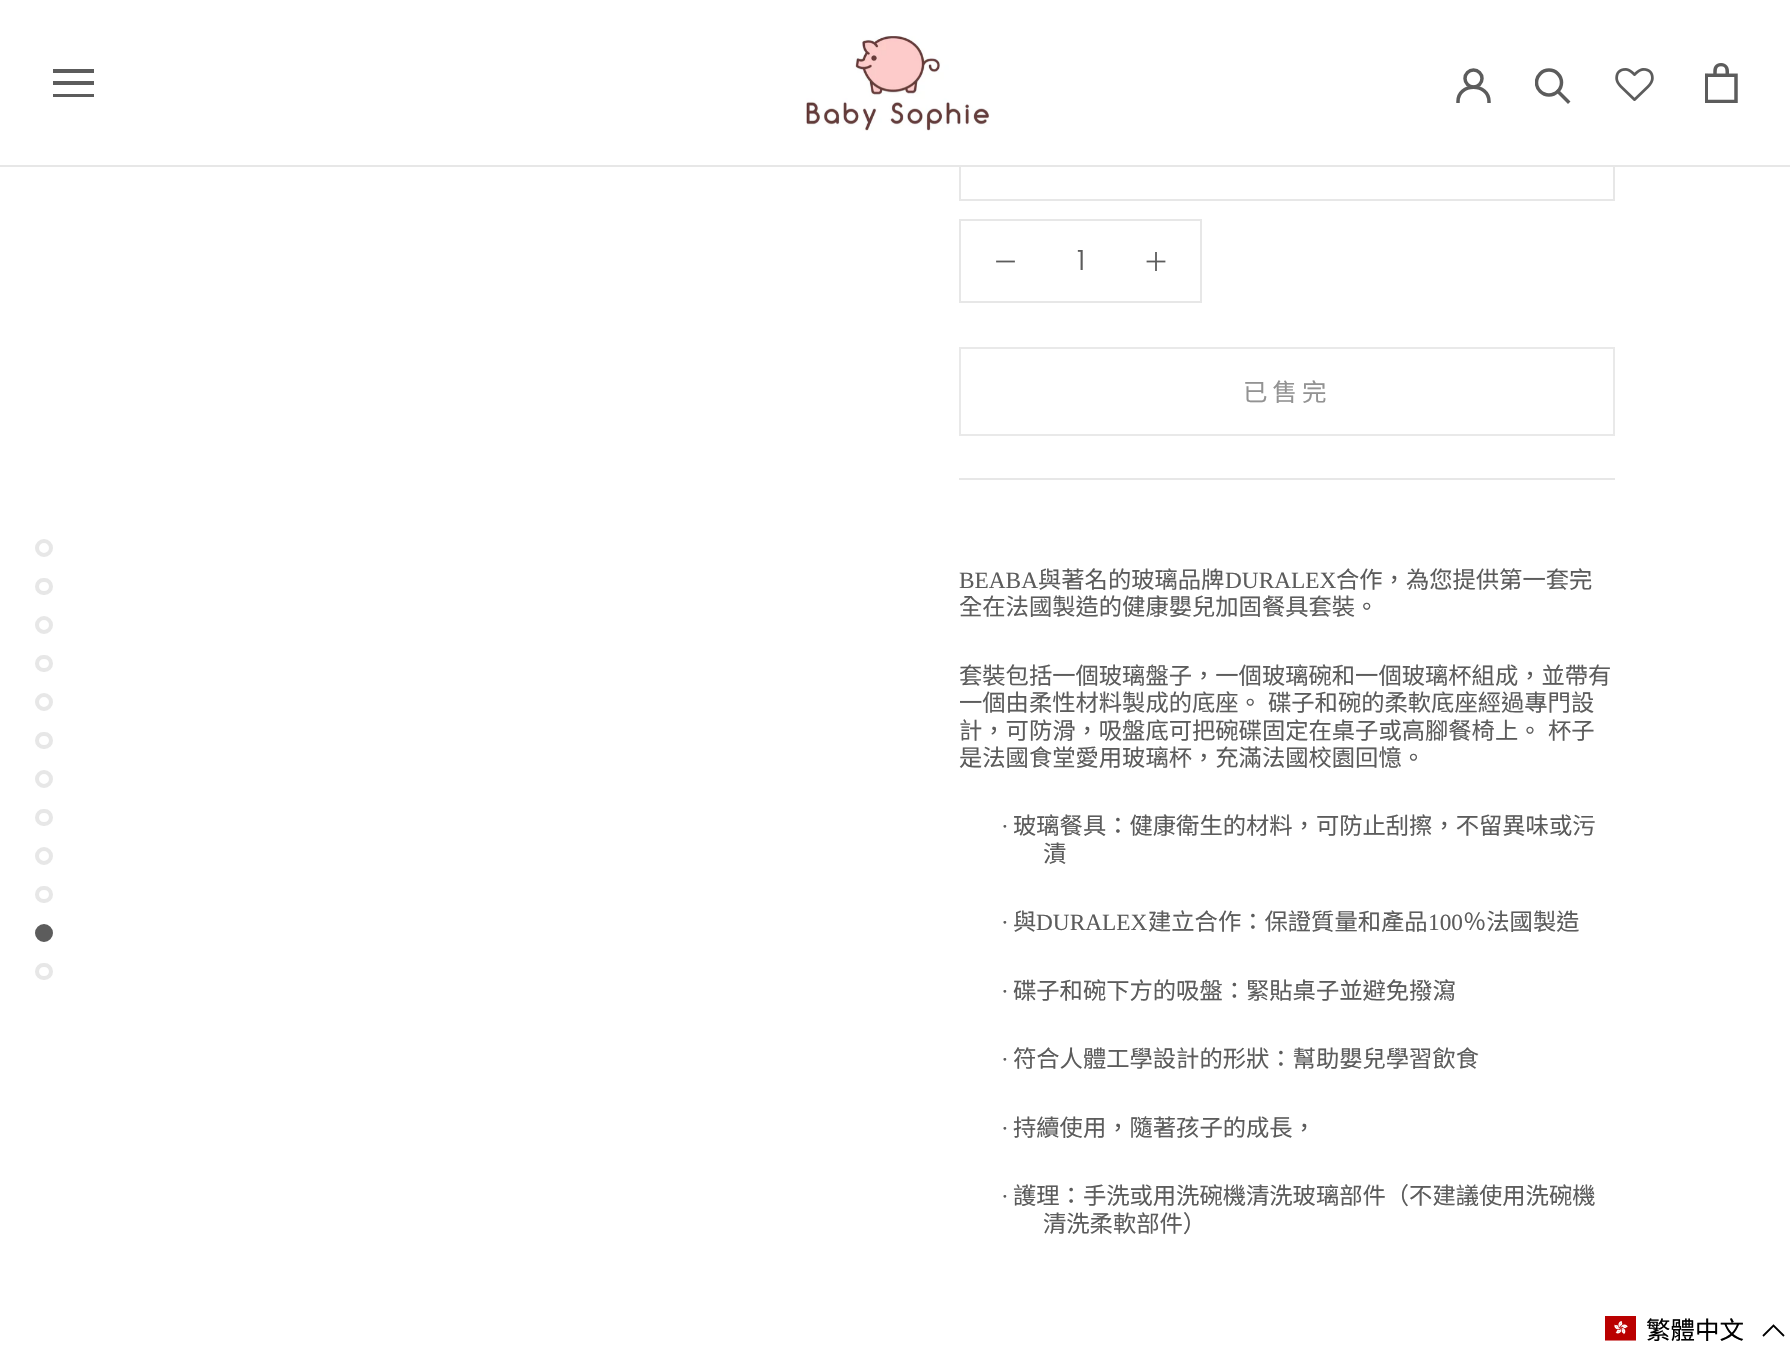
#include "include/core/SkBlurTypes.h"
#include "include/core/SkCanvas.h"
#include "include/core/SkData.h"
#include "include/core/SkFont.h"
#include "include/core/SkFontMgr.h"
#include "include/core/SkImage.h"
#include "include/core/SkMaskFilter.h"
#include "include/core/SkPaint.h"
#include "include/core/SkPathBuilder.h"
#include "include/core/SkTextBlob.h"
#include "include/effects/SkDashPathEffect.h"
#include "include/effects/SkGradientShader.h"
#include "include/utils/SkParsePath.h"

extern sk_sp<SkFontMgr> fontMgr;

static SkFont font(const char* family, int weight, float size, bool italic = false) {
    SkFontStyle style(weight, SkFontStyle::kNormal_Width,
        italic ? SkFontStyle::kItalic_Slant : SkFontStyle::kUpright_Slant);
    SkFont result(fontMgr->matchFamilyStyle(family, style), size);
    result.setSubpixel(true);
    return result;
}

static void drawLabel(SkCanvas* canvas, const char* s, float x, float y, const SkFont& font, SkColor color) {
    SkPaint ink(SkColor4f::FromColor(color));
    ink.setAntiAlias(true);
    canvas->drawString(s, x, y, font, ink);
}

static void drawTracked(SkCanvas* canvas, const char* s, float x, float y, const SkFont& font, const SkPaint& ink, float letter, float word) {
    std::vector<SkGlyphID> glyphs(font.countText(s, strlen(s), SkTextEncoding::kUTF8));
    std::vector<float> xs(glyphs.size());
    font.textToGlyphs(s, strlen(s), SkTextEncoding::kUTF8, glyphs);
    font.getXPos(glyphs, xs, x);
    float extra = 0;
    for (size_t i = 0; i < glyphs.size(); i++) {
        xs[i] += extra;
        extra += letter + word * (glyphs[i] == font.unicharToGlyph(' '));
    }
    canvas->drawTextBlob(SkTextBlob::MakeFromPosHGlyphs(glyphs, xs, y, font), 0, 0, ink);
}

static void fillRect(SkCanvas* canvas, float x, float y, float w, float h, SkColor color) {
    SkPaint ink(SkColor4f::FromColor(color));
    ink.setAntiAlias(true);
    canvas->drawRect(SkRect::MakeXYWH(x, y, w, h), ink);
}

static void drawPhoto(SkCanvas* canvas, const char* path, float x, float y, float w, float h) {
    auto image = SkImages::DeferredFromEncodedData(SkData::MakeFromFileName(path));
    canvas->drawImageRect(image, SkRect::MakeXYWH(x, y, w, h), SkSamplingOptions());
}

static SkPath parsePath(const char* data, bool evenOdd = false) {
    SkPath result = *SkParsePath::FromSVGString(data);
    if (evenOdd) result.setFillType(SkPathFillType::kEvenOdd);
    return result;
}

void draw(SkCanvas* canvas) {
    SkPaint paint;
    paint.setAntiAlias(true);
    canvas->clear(0xFFFFFFFF);
    paint.setStroke(true);
    paint.setStrokeWidth(2);
    paint.setColor(0xFFE7E7E7);
    canvas->drawRect(SkRect::MakeXYWH(960, 117, 654, 83), paint);
    fillRect(canvas, 959, 116, 656, 49, 0xFFFFFFFF);
    fillRect(canvas, 0, 165, 1790, 2, 0xFFE7E7E7);
    canvas->save();
    canvas->clipRect(SkRect::MakeXYWH(53, 68, 42, 30));
    paint.setStroke(false);
    paint.setColor(0xFF5C5C5C);
    canvas->drawPath(parsePath("M52 97V94H94V97ZM52 81H94V85H52ZM52 69H94V73H52Z"), paint);
    canvas->restore();
    drawPhoto(canvas, "assets/img1.png", 806, 36, 184, 95);
    canvas->save();
    canvas->clipRect(SkRect::MakeXYWH(1456, 68, 35, 35));
    paint.setStroke(true);
    paint.setStrokeWidth(3.5f);
    paint.setStrokeCap(SkPaint::kSquare_Cap);
    canvas->drawPath(parsePath("M1458 101.5C1458 82.5 1489 82.5 1489 101.5"), paint);
    canvas->restore();
    paint.setStrokeCap(SkPaint::kButt_Cap);
    canvas->drawCircle(1473.5f, 78.5f, 8.5f, paint);
    paint.setStrokeCap(SkPaint::kSquare_Cap);
    canvas->drawPath(parsePath("M1568 101.5L1558 91.5"), paint);
    canvas->save();
    canvas->clipRect(SkRect::MakeXYWH(1535, 68, 37, 37));
    paint.setStrokeCap(SkPaint::kButt_Cap);
    canvas->drawCircle(1549, 82.5f, 12.5f, paint);
    canvas->restore();
    drawPhoto(canvas, "assets/img2.png", 1615, 68, 39, 33);
    drawPhoto(canvas, "assets/img3.png", 1705, 63, 33, 40);
    paint.setStrokeWidth(4);
    paint.setColor(0xFFE7E7E7);
    canvas->drawCircle(44, 548, 7, paint);
    canvas->drawRoundRect(SkRect::MakeXYWH(37, 580, 14, 13), 6.5f, 6.5f, paint);
    canvas->drawCircle(44, 625, 7, paint);
    canvas->drawRoundRect(SkRect::MakeXYWH(37, 657, 14, 13), 6.5f, 6.5f, paint);
    canvas->drawCircle(44, 702, 7, paint);
    canvas->drawRoundRect(SkRect::MakeXYWH(37, 734, 14, 13), 6.5f, 6.5f, paint);
    canvas->drawCircle(44, 779, 7, paint);
    canvas->drawRoundRect(SkRect::MakeXYWH(37, 811, 14, 13), 6.5f, 6.5f, paint);
    canvas->drawCircle(44, 856, 7, paint);
    canvas->drawRoundRect(SkRect::MakeXYWH(37, 888, 14, 13), 6.5f, 6.5f, paint);
    paint.setStroke(false);
    paint.setColor(0xFF5C5C5C);
    canvas->drawCircle(44, 933, 7, paint);
    paint.setStroke(true);
    canvas->drawCircle(44, 933, 7, paint);
    paint.setColor(0xFFE7E7E7);
    canvas->drawRoundRect(SkRect::MakeXYWH(37, 965, 14, 13), 6.5f, 6.5f, paint);
    paint.setStrokeWidth(2);
    canvas->drawRect(SkRect::MakeXYWH(960, 220, 241, 82), paint);
    paint.setStrokeWidth(1.8f);
    paint.setStrokeCap(SkPaint::kSquare_Cap);
    paint.setColor(0xFF5C5C5C);
    canvas->drawPath(parsePath("M997 261.5H1014"), paint);
    SkFont font1 = font("Poppins", 300, 28);
    drawLabel(canvas, "1", 1077, 270, font1, 0xFF5C5C5C);
    fillRect(canvas, 1155, 252, 2, 19, 0xFF6C6C6C);
    canvas->drawPath(parsePath("M1147.5 261.5H1164.5"), paint);
    paint.setStrokeWidth(2);
    paint.setStrokeCap(SkPaint::kButt_Cap);
    paint.setColor(0xFFE9E9E9);
    canvas->drawRect(SkRect::MakeXYWH(960, 348, 654, 87), paint);
    SkFont font2 = font("Noto Sans CJK TC", 400, 24.5f);
    paint.setStroke(false);
    paint.setColor(0xFF939393);
    drawTracked(canvas, "已售完", 1243, 401, font2, paint, 5, 0);
    fillRect(canvas, 959, 478, 656, 2, 0xFFE7E7E7);
    SkFont font3 = font("Liberation Serif", 400, 23.3f);
    drawLabel(canvas, "BEABA", 959, 588, font3, 0xFF5C5C5C);
    SkFont font4 = font("Noto Sans CJK TC", 400, 23.3f);
    drawLabel(canvas, "與著名的玻璃品牌", 1038, 588, font4, 0xFF5C5C5C);
    drawLabel(canvas, "DURALEX", 1225, 588, font3, 0xFF5C5C5C);
    drawLabel(canvas, "合作，為您提供第一套完", 1336, 588, font4, 0xFF5C5C5C);
    drawLabel(canvas, "全在法國製造的健康嬰兒加固餐具套裝。", 959, 615, font4, 0xFF5C5C5C);
    drawLabel(canvas, "套裝包括一個玻璃盤子，一個玻璃碗和一個玻璃杯組成，並帶有", 959, 684, font4, 0xFF5C5C5C);
    drawLabel(canvas, "一個由柔性材料製成的底座。", 959, 711, font4, 0xFF5C5C5C);
    drawLabel(canvas, "碟子和碗的柔軟底座經過專門設", 1268, 711, font4, 0xFF5C5C5C);
    drawLabel(canvas, "計，可防滑，吸盤底可把碗碟固定在桌子或高腳餐椅上。", 959, 739, font4, 0xFF5C5C5C);
    drawLabel(canvas, "杯子", 1548, 739, font4, 0xFF5C5C5C);
    drawLabel(canvas, "是法國食堂愛用玻璃杯，充滿法國校園回憶。", 959, 766, font4, 0xFF5C5C5C);
    drawLabel(canvas, "·", 1001, 834, font3, 0xFF5C5C5C);
    drawLabel(canvas, "玻璃餐具：健康衛生的材料，可防止刮擦，不留異味或污", 1013, 834, font4, 0xFF5C5C5C);
    drawLabel(canvas, "漬", 1043, 862, font4, 0xFF5C5C5C);
    drawLabel(canvas, "·", 1001, 930, font3, 0xFF5C5C5C);
    drawLabel(canvas, "與", 1013, 930, font4, 0xFF5C5C5C);
    drawLabel(canvas, "DURALEX", 1036, 930, font3, 0xFF5C5C5C);
    drawLabel(canvas, "建立合作：保證質量和產品", 1148, 930, font4, 0xFF5C5C5C);
    drawLabel(canvas, "100", 1428, 930, font3, 0xFF5C5C5C);
    drawLabel(canvas, "％法國製造", 1463, 930, font4, 0xFF5C5C5C);
    drawLabel(canvas, "·", 1001, 999, font3, 0xFF5C5C5C);
    drawLabel(canvas, "碟子和碗下方的吸盤：緊貼桌子並避免撥瀉", 1013, 999, font4, 0xFF5C5C5C);
    drawLabel(canvas, "·", 1001, 1067, font3, 0xFF5C5C5C);
    drawLabel(canvas, "符合人體工學設計的形狀：幫助嬰兒學習飲食", 1013, 1067, font4, 0xFF5C5C5C);
    drawLabel(canvas, "·", 1001, 1136, font3, 0xFF5C5C5C);
    drawLabel(canvas, "持續使用，隨著孩子的成長，", 1013, 1136, font4, 0xFF5C5C5C);
    drawLabel(canvas, "·", 1001, 1204, font3, 0xFF5C5C5C);
    drawLabel(canvas, "護理：手洗或用洗碗機清洗玻璃部件（不建議使用洗碗機", 1013, 1204, font4, 0xFF5C5C5C);
    drawLabel(canvas, "清洗柔軟部件）", 1043, 1232, font4, 0xFF5C5C5C);
    drawPhoto(canvas, "assets/img4.png", 1605, 1316, 31, 25);
    drawLabel(canvas, "繁體中文", 1646, 1339, font2, 0xFF000000);
    paint.setStroke(true);
    paint.setStrokeWidth(1.8f);
    paint.setColor(0xFF000000);
    canvas->drawPath(parsePath("M1784 1336L1773.5 1325.5L1763 1336"), paint);
}
